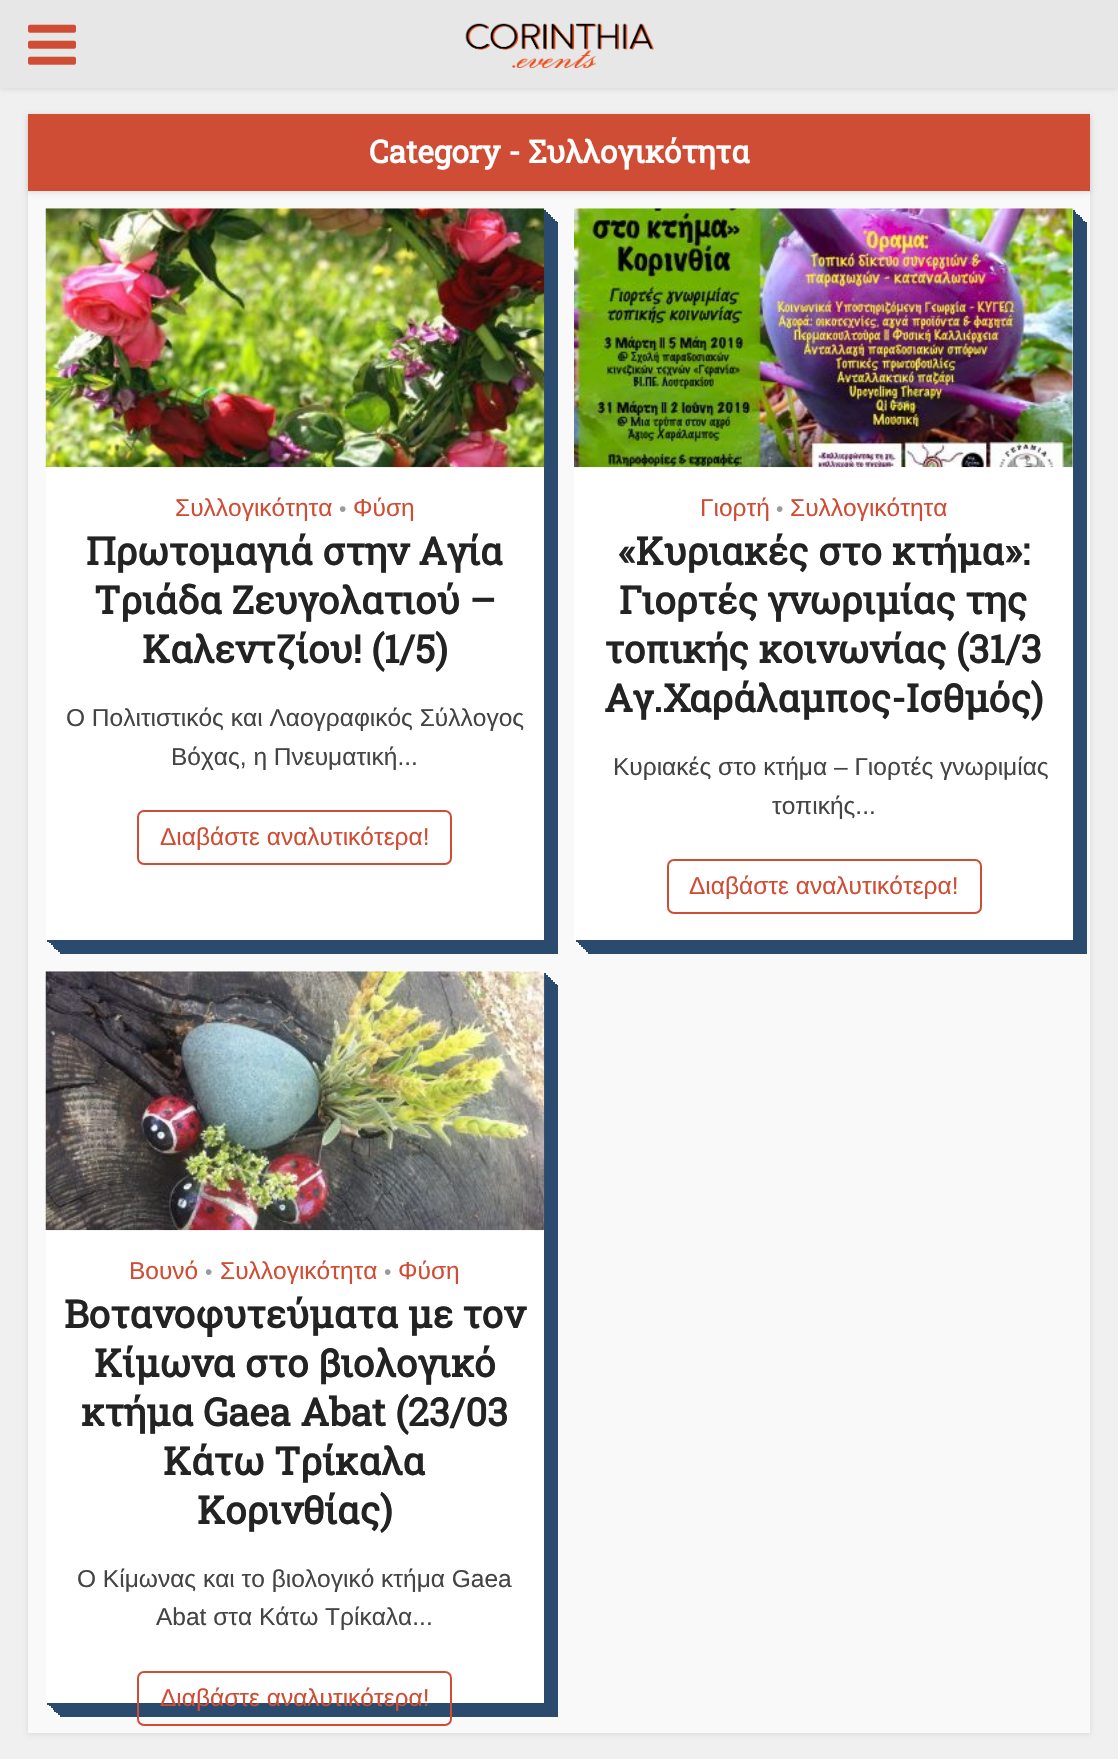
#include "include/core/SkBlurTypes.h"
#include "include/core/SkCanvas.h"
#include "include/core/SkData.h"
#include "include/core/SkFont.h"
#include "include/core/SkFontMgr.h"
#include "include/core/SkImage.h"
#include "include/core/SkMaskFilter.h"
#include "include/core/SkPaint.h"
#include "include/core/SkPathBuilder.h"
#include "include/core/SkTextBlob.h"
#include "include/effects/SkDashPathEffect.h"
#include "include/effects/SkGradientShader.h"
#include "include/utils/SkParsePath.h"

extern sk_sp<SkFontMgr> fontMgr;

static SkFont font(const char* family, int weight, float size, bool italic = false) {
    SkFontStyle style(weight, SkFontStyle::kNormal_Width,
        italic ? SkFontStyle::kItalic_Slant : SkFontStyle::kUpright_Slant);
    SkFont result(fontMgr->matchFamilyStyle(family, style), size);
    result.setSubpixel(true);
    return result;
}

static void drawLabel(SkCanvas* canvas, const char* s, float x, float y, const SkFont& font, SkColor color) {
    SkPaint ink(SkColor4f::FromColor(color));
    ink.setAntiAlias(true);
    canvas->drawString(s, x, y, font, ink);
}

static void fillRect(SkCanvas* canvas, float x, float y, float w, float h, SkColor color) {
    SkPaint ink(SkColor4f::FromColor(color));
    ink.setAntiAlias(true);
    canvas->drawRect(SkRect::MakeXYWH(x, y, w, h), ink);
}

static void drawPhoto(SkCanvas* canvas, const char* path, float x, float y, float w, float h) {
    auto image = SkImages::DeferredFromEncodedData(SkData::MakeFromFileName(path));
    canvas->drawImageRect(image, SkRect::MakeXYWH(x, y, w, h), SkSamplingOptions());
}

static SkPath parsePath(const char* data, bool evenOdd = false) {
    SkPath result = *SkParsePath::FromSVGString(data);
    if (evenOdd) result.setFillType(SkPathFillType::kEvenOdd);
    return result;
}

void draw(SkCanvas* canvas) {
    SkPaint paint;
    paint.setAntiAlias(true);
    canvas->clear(0xFFF0F0F0);
    paint.setColor(0x1A000000);
    paint.setMaskFilter(SkMaskFilter::MakeBlur(kNormal_SkBlurStyle, 2.5f));
    canvas->drawRect(SkRect::MakeXYWH(0, 2, 1118, 87), paint);
    paint.setMaskFilter(nullptr);
    fillRect(canvas, 0, 0, 1118, 88, 0xFFE7E7E7);
    drawPhoto(canvas, "assets/img1.png", 28, 24, 48, 41);
    drawPhoto(canvas, "assets/img2.png", 465, 23, 189, 46);
    paint.setMaskFilter(SkMaskFilter::MakeBlur(kNormal_SkBlurStyle, 2.5f));
    canvas->drawRect(SkRect::MakeXYWH(28, 116, 1062, 1618), paint);
    paint.setMaskFilter(nullptr);
    fillRect(canvas, 28, 191, 1062, 1542, 0xFFF9F9F9);
    paint.setMaskFilter(SkMaskFilter::MakeBlur(kNormal_SkBlurStyle, 2.5f));
    canvas->drawRect(SkRect::MakeXYWH(28, 116, 1062, 77), paint);
    paint.setMaskFilter(nullptr);
    fillRect(canvas, 28, 114, 1062, 77, 0xFFCF4D35);
    SkFont font1 = font("Roboto Slab", 700, 31.5f);
    drawLabel(canvas, "Category - Συλλογικότητα", 369, 163, font1, 0xFFFFFFFF);
    paint.setColor(0xFF2A4B6D);
    canvas->drawPath(parsePath("M60 940V954H558V222H544V940Z"), paint);
    canvas->drawPath(parsePath("M58 940V952H557V221H544V940Z"), paint);
    canvas->drawPath(parsePath("M56 940V950H555V219H544V940Z"), paint);
    canvas->drawPath(parsePath("M54 940V949H553V217H544V940Z"), paint);
    canvas->drawPath(parsePath("M53 940V947H551V215H544V940Z"), paint);
    canvas->drawPath(parsePath("M51 940V945H550V214H544V940Z"), paint);
    canvas->drawPath(parsePath("M49 940V943H548V212H544V940Z"), paint);
    canvas->drawPath(parsePath("M47 940V942H546V210H544V940Z"), paint);
    fillRect(canvas, 46, 208, 498, 732, 0xFFFFFFFF);
    drawPhoto(canvas, "assets/img3.png", 45, 208, 500, 260);
    SkFont font2 = font("Liberation Sans", 400, 24.5f);
    drawLabel(canvas, "Συλλογικότητα", 175, 516, font2, 0xFFCF4D35);
    SkFont font3 = font("Liberation Sans", 400, 21);
    drawLabel(canvas, "•", 339, 516, font3, 0xFF9B9B9B);
    drawLabel(canvas, "Φύση", 353, 516, font2, 0xFFCF4D35);
    SkFont font4 = font("Roboto Slab", 700, 38.5f);
    drawLabel(canvas, "Πρωτομαγιά στην Αγία", 86, 565, font4, 0xFF232323);
    drawLabel(canvas, "Τριάδα Ζευγολατιού –", 94, 614, font4, 0xFF232323);
    drawLabel(canvas, "Καλεντζίου! (1/5)", 142, 663, font4, 0xFF232323);
    drawLabel(canvas, "Ο Πολιτιστικός και Λαογραφικός Σύλλογος", 66, 726, font2, 0xFF444444);
    drawLabel(canvas, "Βόχας, η Πνευματική...", 171, 765, font2, 0xFF444444);
    paint.setStroke(true);
    paint.setStrokeWidth(2);
    paint.setColor(0xFFCF4D35);
    canvas->drawRoundRect(SkRect::MakeXYWH(138, 811, 313, 53), 6, 6, paint);
    drawLabel(canvas, "Διαβάστε αναλυτικότερα!", 160, 845, font2, 0xFFCF4D35);
    paint.setStroke(false);
    paint.setColor(0xFF2A4B6D);
    canvas->drawPath(parsePath("M588 940V954H1087V222H1073V940Z"), paint);
    canvas->drawPath(parsePath("M586 940V952H1085V221H1073V940Z"), paint);
    canvas->drawPath(parsePath("M585 940V950H1083V219H1073V940Z"), paint);
    canvas->drawPath(parsePath("M583 940V949H1082V217H1073V940Z"), paint);
    canvas->drawPath(parsePath("M581 940V947H1080V215H1073V940Z"), paint);
    canvas->drawPath(parsePath("M579 940V945H1078V214H1073V940Z"), paint);
    canvas->drawPath(parsePath("M578 940V943H1076V212H1073V940Z"), paint);
    canvas->drawPath(parsePath("M576 940V942H1075V210H1073V940Z"), paint);
    fillRect(canvas, 574, 208, 499, 732, 0xFFFFFFFF);
    drawPhoto(canvas, "assets/img4.png", 574, 208, 499, 260);
    drawLabel(canvas, "Γιορτή", 700, 516, font2, 0xFFCF4D35);
    drawLabel(canvas, "•", 776, 516, font3, 0xFF9B9B9B);
    drawLabel(canvas, "Συλλογικότητα", 790, 516, font2, 0xFFCF4D35);
    drawLabel(canvas, "«Κυριακές στο κτήμα»:", 618, 565, font4, 0xFF232323);
    drawLabel(canvas, "Γιορτές γνωριμίας της", 619, 614, font4, 0xFF232323);
    drawLabel(canvas, "τοπικής κοινωνίας (31/3", 605, 663, font4, 0xFF232323);
    drawLabel(canvas, "Αγ.Χαράλαμπος-Ισθμός)", 604, 712, font4, 0xFF232323);
    drawLabel(canvas, "Κυριακές στο κτήμα – Γιορτές γνωριμίας", 613, 775, font2, 0xFF444444);
    drawLabel(canvas, "τοπικής...", 772, 814, font2, 0xFF444444);
    paint.setStroke(true);
    paint.setColor(0xFFCF4D35);
    canvas->drawRoundRect(SkRect::MakeXYWH(668, 860, 313, 53), 6, 6, paint);
    drawLabel(canvas, "Διαβάστε αναλυτικότερα!", 689, 894, font2, 0xFFCF4D35);
    paint.setStroke(false);
    paint.setColor(0xFF2A4B6D);
    canvas->drawPath(parsePath("M60 1703V1717H558V985H544V1703Z"), paint);
    canvas->drawPath(parsePath("M58 1703V1715H557V984H544V1703Z"), paint);
    canvas->drawPath(parsePath("M56 1703V1713H555V982H544V1703Z"), paint);
    canvas->drawPath(parsePath("M54 1703V1712H553V980H544V1703Z"), paint);
    canvas->drawPath(parsePath("M53 1703V1710H551V978H544V1703Z"), paint);
    canvas->drawPath(parsePath("M51 1703V1708H550V977H544V1703Z"), paint);
    canvas->drawPath(parsePath("M49 1703V1706H548V975H544V1703Z"), paint);
    canvas->drawPath(parsePath("M47 1703V1705H546V973H544V1703Z"), paint);
    fillRect(canvas, 46, 971, 498, 732, 0xFFFFFFFF);
    drawPhoto(canvas, "assets/img5.png", 45, 971, 500, 260);
    drawLabel(canvas, "Βουνό", 129, 1279, font2, 0xFFCF4D35);
    drawLabel(canvas, "•", 205, 1279, font3, 0xFF9B9B9B);
    drawLabel(canvas, "Συλλογικότητα", 220, 1279, font2, 0xFFCF4D35);
    drawLabel(canvas, "•", 384, 1279, font3, 0xFF9B9B9B);
    drawLabel(canvas, "Φύση", 398, 1279, font2, 0xFFCF4D35);
    drawLabel(canvas, "Βοτανοφυτεύματα με τον", 64, 1328, font4, 0xFF232323);
    drawLabel(canvas, "Κίμωνα στο βιολογικό", 94, 1377, font4, 0xFF232323);
    drawLabel(canvas, "κτήμα Gaea Abat (23/03", 81, 1426, font4, 0xFF232323);
    drawLabel(canvas, "Κάτω Τρίκαλα", 163, 1475, font4, 0xFF232323);
    drawLabel(canvas, "Κορινθίας)", 197, 1524, font4, 0xFF232323);
    drawLabel(canvas, "Ο Κίμωνας και το βιολογικό κτήμα Gaea", 77, 1587, font2, 0xFF444444);
    drawLabel(canvas, "Abat στα Κάτω Τρίκαλα...", 156, 1625, font2, 0xFF444444);
    paint.setStroke(true);
    paint.setColor(0xFFCF4D35);
    canvas->drawRoundRect(SkRect::MakeXYWH(138, 1672, 313, 53), 6, 6, paint);
    drawLabel(canvas, "Διαβάστε αναλυτικότερα!", 160, 1706, font2, 0xFFCF4D35);
}
